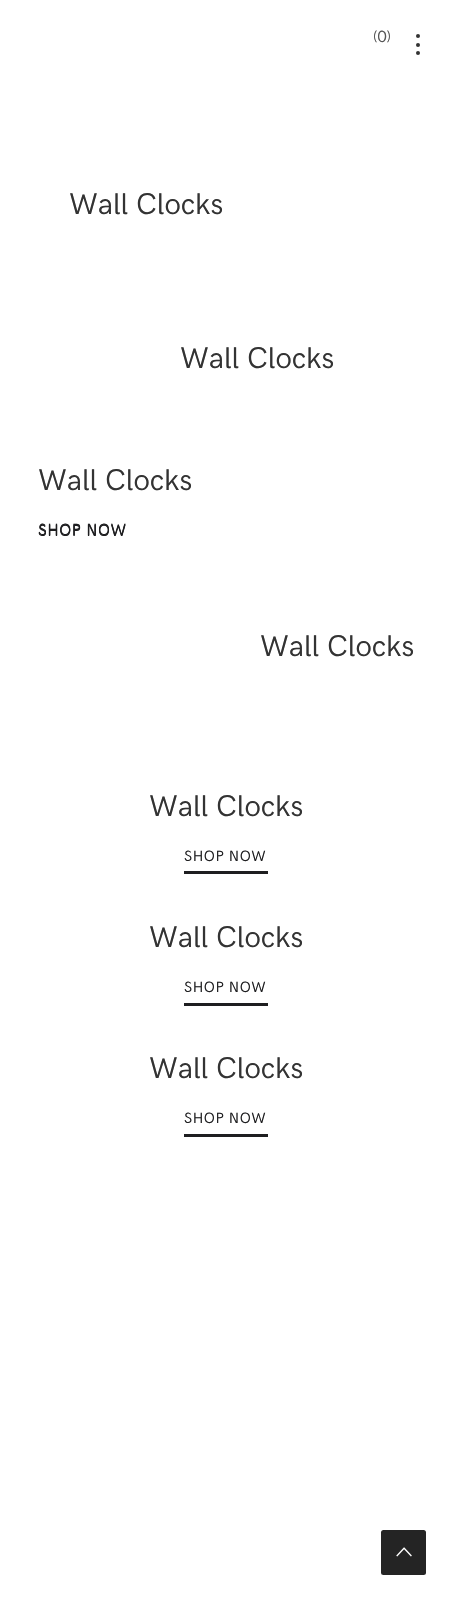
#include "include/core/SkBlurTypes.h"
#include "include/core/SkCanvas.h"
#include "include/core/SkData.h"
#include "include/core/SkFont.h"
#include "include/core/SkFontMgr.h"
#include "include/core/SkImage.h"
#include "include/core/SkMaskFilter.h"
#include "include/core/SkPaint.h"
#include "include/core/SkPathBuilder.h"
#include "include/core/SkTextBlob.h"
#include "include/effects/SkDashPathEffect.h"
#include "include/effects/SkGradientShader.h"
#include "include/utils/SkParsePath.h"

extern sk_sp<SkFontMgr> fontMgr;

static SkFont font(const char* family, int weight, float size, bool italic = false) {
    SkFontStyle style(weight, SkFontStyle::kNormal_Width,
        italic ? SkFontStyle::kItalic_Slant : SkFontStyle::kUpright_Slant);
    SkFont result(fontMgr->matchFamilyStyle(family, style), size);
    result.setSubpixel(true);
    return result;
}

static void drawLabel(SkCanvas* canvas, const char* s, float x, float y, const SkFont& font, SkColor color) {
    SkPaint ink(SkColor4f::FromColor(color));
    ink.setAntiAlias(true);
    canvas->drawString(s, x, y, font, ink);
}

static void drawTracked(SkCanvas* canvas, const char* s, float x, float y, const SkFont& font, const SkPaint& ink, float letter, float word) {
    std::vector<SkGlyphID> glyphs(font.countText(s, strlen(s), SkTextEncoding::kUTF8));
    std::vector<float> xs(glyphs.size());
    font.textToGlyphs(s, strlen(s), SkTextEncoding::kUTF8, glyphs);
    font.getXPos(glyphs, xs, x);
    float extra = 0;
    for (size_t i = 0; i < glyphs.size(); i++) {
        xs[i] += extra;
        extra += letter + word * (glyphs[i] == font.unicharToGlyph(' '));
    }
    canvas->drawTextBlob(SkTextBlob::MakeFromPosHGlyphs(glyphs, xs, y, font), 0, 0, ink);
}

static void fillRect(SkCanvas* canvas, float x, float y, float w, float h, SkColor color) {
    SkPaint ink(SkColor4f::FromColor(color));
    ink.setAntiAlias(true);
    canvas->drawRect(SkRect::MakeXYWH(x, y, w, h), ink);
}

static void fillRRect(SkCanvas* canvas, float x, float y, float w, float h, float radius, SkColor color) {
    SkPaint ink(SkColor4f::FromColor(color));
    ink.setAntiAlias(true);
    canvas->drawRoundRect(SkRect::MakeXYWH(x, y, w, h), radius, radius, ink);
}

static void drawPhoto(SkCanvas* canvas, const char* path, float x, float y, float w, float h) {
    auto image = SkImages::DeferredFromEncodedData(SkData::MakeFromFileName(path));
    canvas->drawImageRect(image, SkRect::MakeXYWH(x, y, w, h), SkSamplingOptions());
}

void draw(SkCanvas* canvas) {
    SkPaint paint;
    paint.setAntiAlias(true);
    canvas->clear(0xFFFFFFFF);
    SkFont font1 = font("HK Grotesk", 400, 16.25f);
    drawLabel(canvas, "(0)", 373, 42, font1, 0xFF555555);
    paint.setColor(0xFF333333);
    canvas->drawCircle(418, 45, 2, paint);
    canvas->drawCircle(418, 36, 2, paint);
    canvas->drawCircle(418, 53, 2, paint);
    SkFont font2 = font("HK Grotesk", 400, 30);
    drawLabel(canvas, "Wall Clocks", 69, 214, font2, 0xFF333333);
    drawLabel(canvas, "Wall Clocks", 180, 368, font2, 0xFF333333);
    drawLabel(canvas, "Wall Clocks", 38, 490, font2, 0xFF333333);
    paint.setColor(0xFF1E1E20);
    drawTracked(canvas, "SHOP NOW", 38, 535, font1, paint, 0.5f, 0);
    canvas->save();
    canvas->clipRect(SkRect::MakeXYWH(0, 383, 451, 153));
    drawTracked(canvas, "SHOP NOW", 38, 536, font1, paint, 0.5f, 0);
    canvas->restore();
    drawLabel(canvas, "Wall Clocks", 260, 656, font2, 0xFF333333);
    drawLabel(canvas, "Wall Clocks", 149, 816, font2, 0xFF333333);
    fillRect(canvas, 184, 871, 84, 3, 0xFF1E1E20);
    SkFont font3 = font("HK Grotesk", 400, 15);
    drawTracked(canvas, "SHOP NOW", 184, 861, font3, paint, 0.5f, 0);
    drawLabel(canvas, "Wall Clocks", 149, 947, font2, 0xFF333333);
    fillRect(canvas, 184, 1003, 84, 3, 0xFF1E1E20);
    drawTracked(canvas, "SHOP NOW", 184, 992, font3, paint, 0.5f, 0);
    drawLabel(canvas, "Wall Clocks", 149, 1078, font2, 0xFF333333);
    fillRect(canvas, 184, 1134, 84, 3, 0xFF1E1E20);
    drawTracked(canvas, "SHOP NOW", 184, 1123, font3, paint, 0.5f, 0);
    fillRRect(canvas, 381, 1530, 45, 45, 2.5f, 0xFF242424);
    drawPhoto(canvas, "assets/img1.png", 396, 1547, 16, 10);
}
